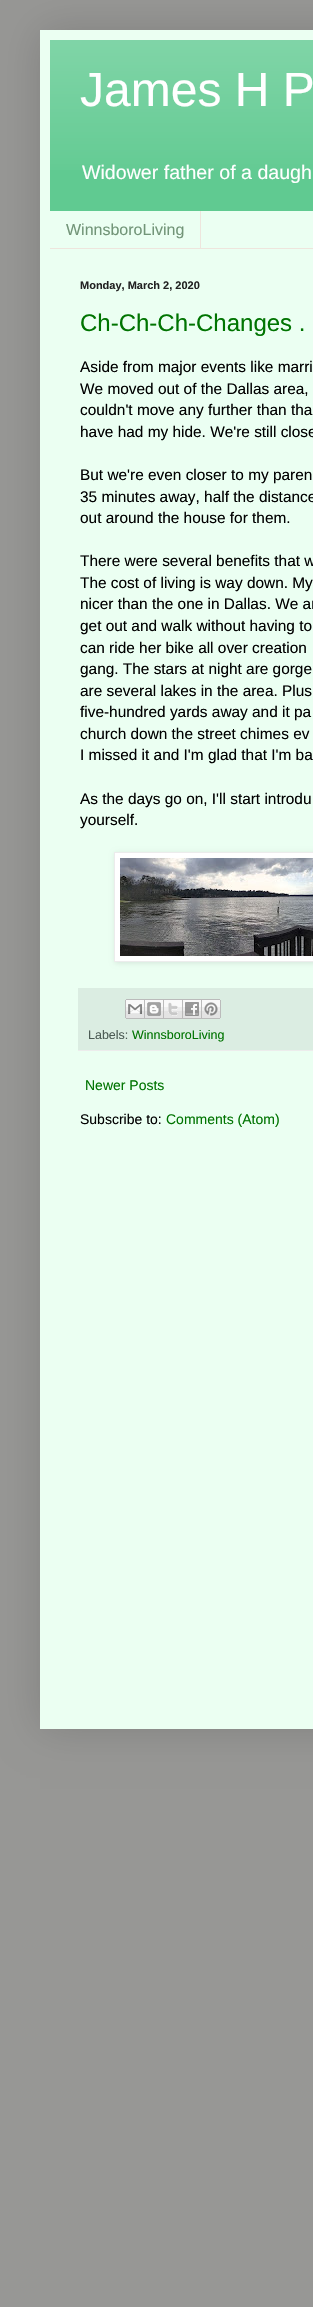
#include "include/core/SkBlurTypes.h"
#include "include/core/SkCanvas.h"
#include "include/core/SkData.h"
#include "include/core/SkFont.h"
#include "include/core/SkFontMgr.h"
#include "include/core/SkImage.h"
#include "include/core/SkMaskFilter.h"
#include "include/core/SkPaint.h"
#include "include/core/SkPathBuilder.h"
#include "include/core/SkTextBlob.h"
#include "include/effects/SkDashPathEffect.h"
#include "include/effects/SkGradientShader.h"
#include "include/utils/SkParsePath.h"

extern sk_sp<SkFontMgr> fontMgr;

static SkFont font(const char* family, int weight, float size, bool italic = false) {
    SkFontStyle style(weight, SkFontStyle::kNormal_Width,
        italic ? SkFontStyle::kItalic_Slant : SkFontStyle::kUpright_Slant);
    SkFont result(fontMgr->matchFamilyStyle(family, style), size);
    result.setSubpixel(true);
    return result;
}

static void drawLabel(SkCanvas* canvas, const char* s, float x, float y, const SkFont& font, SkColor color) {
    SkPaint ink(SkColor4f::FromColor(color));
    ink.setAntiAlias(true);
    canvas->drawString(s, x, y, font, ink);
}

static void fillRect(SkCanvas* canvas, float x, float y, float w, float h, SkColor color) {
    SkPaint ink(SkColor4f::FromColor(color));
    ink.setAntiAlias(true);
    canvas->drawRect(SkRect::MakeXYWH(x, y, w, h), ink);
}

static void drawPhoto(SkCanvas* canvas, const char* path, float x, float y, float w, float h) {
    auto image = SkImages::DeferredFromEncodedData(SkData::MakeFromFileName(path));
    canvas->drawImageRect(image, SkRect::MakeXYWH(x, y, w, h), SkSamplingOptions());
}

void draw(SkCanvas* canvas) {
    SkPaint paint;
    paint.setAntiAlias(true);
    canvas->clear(0xFF979795);
    paint.setColor(0x26000000);
    paint.setMaskFilter(SkMaskFilter::MakeBlur(kNormal_SkBlurStyle, 20));
    canvas->drawRect(SkRect::MakeXYWH(40, 30, 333, 1699), paint);
    paint.setMaskFilter(nullptr);
    fillRect(canvas, 40, 30, 273, 1699, 0xFFEBFFF2);
    fillRect(canvas, 50, 40, 263, 171, 0xFF60CA91);
    drawPhoto(canvas, "assets/img1.png", 50, 40, 263, 130);
    SkFont font1 = font("Liberation Sans", 400, 48);
    drawLabel(canvas, "James H P", 80, 106, font1, 0xFFFFFFFF);
    SkFont font2 = font("Liberation Sans", 400, 19.6f);
    drawLabel(canvas, "Widower father of a daugh", 82, 179, font2, 0xFFFFFFFF);
    fillRect(canvas, 50, 248, 263, 1, 0xFFEEE5DD);
    fillRect(canvas, 200, 211, 1, 37, 0xFFEEE5DD);
    SkFont font3 = font("Liberation Sans", 400, 16);
    drawLabel(canvas, "WinnsboroLiving", 66, 235, font3, 0xFF729578);
    SkFont font4 = font("Liberation Sans", 700, 11);
    drawLabel(canvas, "Monday, March 2, 2020", 80, 289, font4, 0xFF222222);
    SkFont font5 = font("Liberation Sans", 400, 24);
    drawLabel(canvas, "Ch-Ch-Ch-Changes .", 80, 331, font5, 0xFF007401);
    SkFont font6 = font("Liberation Sans", 400, 15.4f);
    drawLabel(canvas, "Aside from major events like marri", 80, 372, font6, 0xFF000000);
    drawLabel(canvas, "We moved out of the Dallas area,", 80, 394, font6, 0xFF000000);
    drawLabel(canvas, "couldn't move any further than tha", 80, 415, font6, 0xFF000000);
    drawLabel(canvas, "have had my hide. We're still close", 80, 437, font6, 0xFF000000);
    drawLabel(canvas, "But we're even closer to my paren", 80, 480, font6, 0xFF000000);
    drawLabel(canvas, "35 minutes away, half the distance", 80, 502, font6, 0xFF000000);
    drawLabel(canvas, "out around the house for them.", 80, 523, font6, 0xFF000000);
    drawLabel(canvas, "There were several benefits that w", 80, 566, font6, 0xFF000000);
    drawLabel(canvas, "The cost of living is way down. My", 80, 588, font6, 0xFF000000);
    drawLabel(canvas, "nicer than the one in Dallas. We ar", 80, 609, font6, 0xFF000000);
    drawLabel(canvas, "get out and walk without having to", 80, 631, font6, 0xFF000000);
    drawLabel(canvas, "can ride her bike all over creation", 80, 653, font6, 0xFF000000);
    drawLabel(canvas, "gang. The stars at night are gorge", 80, 674, font6, 0xFF000000);
    drawLabel(canvas, "are several lakes in the area. Plus", 80, 696, font6, 0xFF000000);
    drawLabel(canvas, "five-hundred yards away and it pa", 80, 717, font6, 0xFF000000);
    drawLabel(canvas, "church down the street chimes ev", 80, 739, font6, 0xFF000000);
    drawLabel(canvas, "I missed it and I'm glad that I'm ba", 80, 760, font6, 0xFF000000);
    drawLabel(canvas, "As the days go on, I'll start introdu", 80, 804, font6, 0xFF000000);
    drawLabel(canvas, "yourself.", 80, 825, font6, 0xFF000000);
    paint.setColor(0x1A000000);
    paint.setMaskFilter(SkMaskFilter::MakeBlur(kNormal_SkBlurStyle, 2.5f));
    canvas->drawRect(SkRect::MakeXYWH(115, 853, 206, 110), paint);
    paint.setMaskFilter(nullptr);
    paint.setColor(0xFFFFFFFF);
    canvas->drawRect(SkRect::MakeXYWH(114.5f, 852.5f, 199, 109), paint);
    paint.setStroke(true);
    paint.setStrokeWidth(1);
    paint.setColor(0xFFECECEC);
    canvas->drawRect(SkRect::MakeXYWH(114.5f, 852.5f, 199, 109), paint);
    drawPhoto(canvas, "assets/img2.png", 120, 858, 193, 98);
    fillRect(canvas, 78, 988, 235, 62, 0xFFDBEDE2);
    fillRect(canvas, 78, 1050, 235, 1, 0xFFECECEC);
    drawPhoto(canvas, "assets/img3.png", 125, 999, 20, 20);
    drawPhoto(canvas, "assets/img4.png", 145, 999, 19, 20);
    drawPhoto(canvas, "assets/img5.png", 164, 999, 19, 20);
    drawPhoto(canvas, "assets/img6.png", 183, 999, 19, 20);
    drawPhoto(canvas, "assets/img7.png", 202, 999, 19, 20);
    SkFont font7 = font("Liberation Sans", 400, 12.5f);
    drawLabel(canvas, "Labels:", 88, 1039, font7, 0xFF4B5A54);
    drawLabel(canvas, "WinnsboroLiving", 132, 1039, font7, 0xFF007401);
    SkFont font8 = font("Liberation Sans", 400, 14);
    drawLabel(canvas, "Newer Posts", 85, 1090, font8, 0xFF007401);
    drawLabel(canvas, "Subscribe to:", 80, 1124, font8, 0xFF000000);
    drawLabel(canvas, "Comments (Atom)", 166, 1124, font8, 0xFF007401);
}
